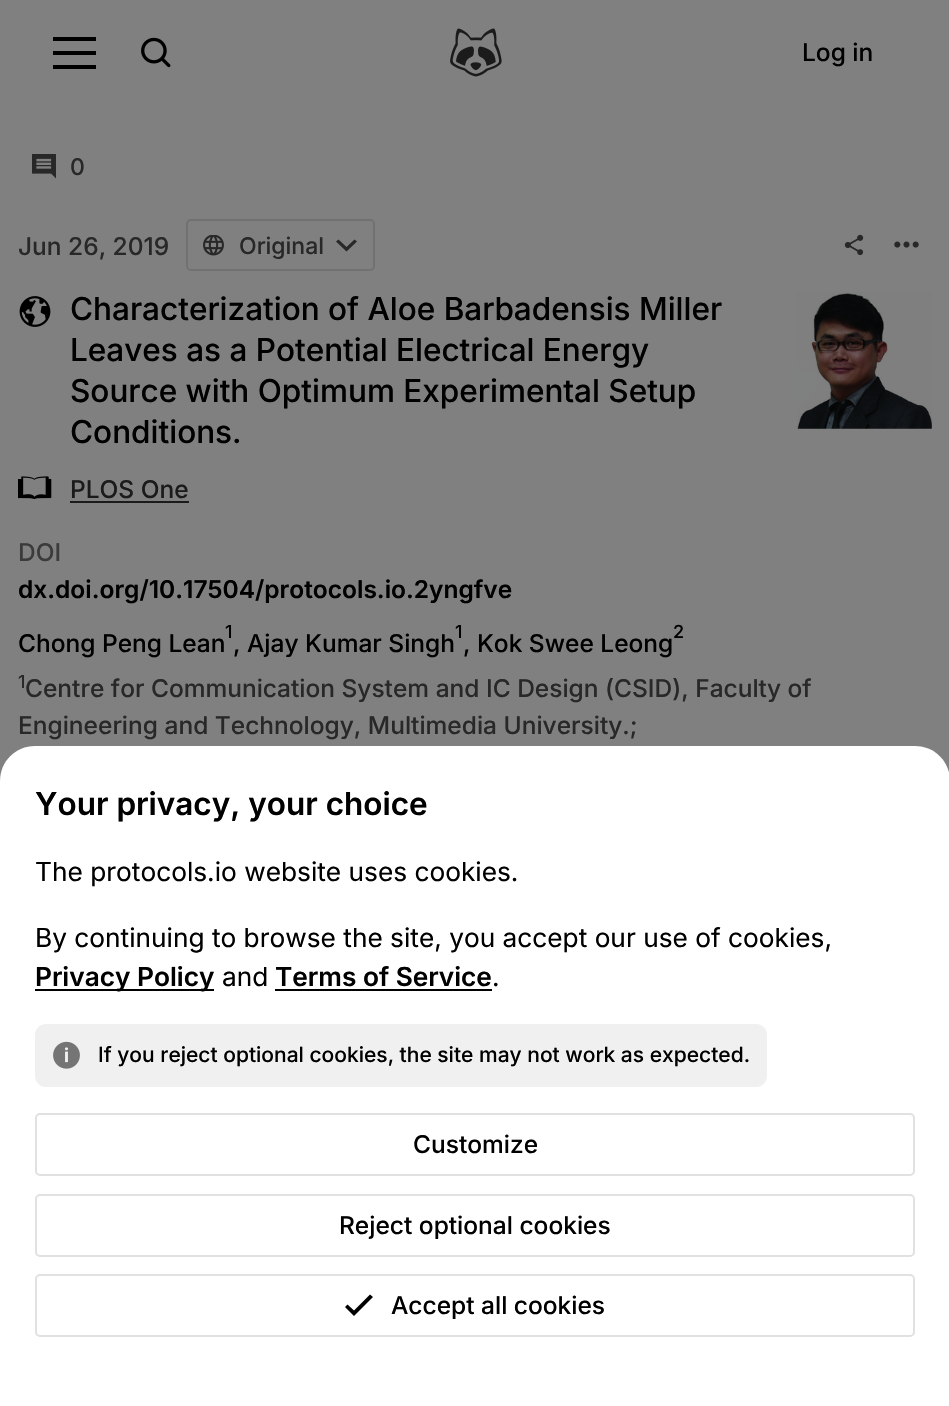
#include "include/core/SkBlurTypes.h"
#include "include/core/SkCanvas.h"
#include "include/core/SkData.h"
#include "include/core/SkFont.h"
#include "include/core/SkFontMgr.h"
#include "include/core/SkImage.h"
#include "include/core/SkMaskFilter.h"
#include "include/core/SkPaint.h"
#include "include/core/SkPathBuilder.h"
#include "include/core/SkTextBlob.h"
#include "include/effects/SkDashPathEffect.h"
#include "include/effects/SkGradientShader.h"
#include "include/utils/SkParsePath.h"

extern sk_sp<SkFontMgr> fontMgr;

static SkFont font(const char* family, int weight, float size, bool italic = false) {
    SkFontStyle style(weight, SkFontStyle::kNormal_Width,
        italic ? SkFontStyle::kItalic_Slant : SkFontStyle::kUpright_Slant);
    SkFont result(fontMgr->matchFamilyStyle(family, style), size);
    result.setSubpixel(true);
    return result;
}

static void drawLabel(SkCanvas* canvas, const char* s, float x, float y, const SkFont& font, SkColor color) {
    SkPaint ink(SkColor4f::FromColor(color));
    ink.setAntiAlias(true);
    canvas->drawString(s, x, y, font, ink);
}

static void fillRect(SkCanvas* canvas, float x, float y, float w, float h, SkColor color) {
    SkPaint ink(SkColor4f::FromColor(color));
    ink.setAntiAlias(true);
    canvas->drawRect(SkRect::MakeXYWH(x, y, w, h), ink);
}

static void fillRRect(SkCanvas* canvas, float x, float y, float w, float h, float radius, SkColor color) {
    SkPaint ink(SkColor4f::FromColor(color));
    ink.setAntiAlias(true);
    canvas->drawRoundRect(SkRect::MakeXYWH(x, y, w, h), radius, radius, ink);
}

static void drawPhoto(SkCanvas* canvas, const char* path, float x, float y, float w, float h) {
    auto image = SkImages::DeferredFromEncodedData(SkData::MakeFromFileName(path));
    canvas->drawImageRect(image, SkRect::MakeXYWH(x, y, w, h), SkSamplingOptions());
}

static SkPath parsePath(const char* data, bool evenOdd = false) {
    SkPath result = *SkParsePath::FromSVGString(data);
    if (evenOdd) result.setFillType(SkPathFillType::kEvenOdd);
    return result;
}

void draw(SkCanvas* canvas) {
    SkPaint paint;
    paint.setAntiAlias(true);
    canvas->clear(0xFF808080);
    fillRect(canvas, 53, 37, 43, 4, 0xFF000000);
    fillRect(canvas, 53, 51, 43, 4, 0xFF000000);
    fillRect(canvas, 53, 65, 43, 4, 0xFF000000);
    drawPhoto(canvas, "assets/img1.png", 141, 37, 30, 31);
    drawPhoto(canvas, "assets/img2.png", 450, 28, 52, 49);
    SkFont font1 = font("Inter", 500, 24.5f);
    drawLabel(canvas, "Log in", 802, 61, font1, 0xFF000000);
    drawPhoto(canvas, "assets/img3.png", 32, 154, 24, 25);
    SkFont font2 = font("Inter", 500, 23);
    drawLabel(canvas, "0", 70, 175, font2, 0xFF282828);
    drawLabel(canvas, "Jun 26, 2019", 18, 255, font1, 0xFF282828);
    paint.setStroke(true);
    paint.setStrokeWidth(2);
    paint.setColor(0xFF717171);
    canvas->drawRoundRect(SkRect::MakeXYWH(187, 220, 187, 50), 4, 4, paint);
    drawPhoto(canvas, "assets/img4.png", 203, 235, 21, 21);
    drawLabel(canvas, "Original", 239, 254, font2, 0xFF282828);
    paint.setStroke(false);
    paint.setColor(0xFF282828);
    canvas->drawPath(parsePath("M354.5 239.5L346.5 247L338.5 239.5L336 241.5L346.5 251.5L357 241.5Z"), paint);
    drawPhoto(canvas, "assets/img5.png", 844, 234, 20, 22);
    drawPhoto(canvas, "assets/img6.png", 894, 241, 25, 7);
    drawPhoto(canvas, "assets/img7.png", 19, 296, 32, 31);
    SkFont font3 = font("Inter", 500, 31.5f);
    drawLabel(canvas, "Characterization of Aloe Barbadensis Miller", 70, 320, font3, 0xFF000000);
    drawLabel(canvas, "Leaves as a Potential Electrical Energy", 70, 361, font3, 0xFF000000);
    drawLabel(canvas, "Source with Optimum Experimental Setup", 70, 402, font3, 0xFF000000);
    drawLabel(canvas, "Conditions.", 70, 443, font3, 0xFF000000);
    drawPhoto(canvas, "assets/img8.png", 18, 476, 34, 23);
    drawLabel(canvas, "PLOS One", 70, 498, font1, 0xFF1B1B1B);
    fillRect(canvas, 70, 501, 119, 2, 0xFF1B1B1B);
    drawLabel(canvas, "DOI", 18, 561, font1, 0xFF3B3B3B);
    SkFont font4 = font("Inter", 600, 24.5f);
    drawLabel(canvas, "dx.doi.org/10.17504/protocols.io.2yngfve", 18, 598, font4, 0xFF000000);
    drawPhoto(canvas, "assets/img9.png", 796, 292, 137, 137);
    SkFont font5 = font("Inter", 500, 18);
    drawLabel(canvas, "1", 225, 638, font5, 0xFF000000);
    drawLabel(canvas, "Chong Peng Lean", 18, 652, font1, 0xFF000000);
    drawLabel(canvas, ",", 233, 652, font1, 0xFF000000);
    drawLabel(canvas, "1", 455, 638, font5, 0xFF000000);
    drawLabel(canvas, "Ajay Kumar Singh", 247, 652, font1, 0xFF000000);
    drawLabel(canvas, ",", 463, 652, font1, 0xFF000000);
    drawLabel(canvas, "2", 673, 638, font5, 0xFF000000);
    drawLabel(canvas, "Kok Swee Leong", 477, 652, font1, 0xFF000000);
    drawLabel(canvas, "1", 18, 688, font5, 0xFF282828);
    drawLabel(canvas, "Centre for Communication System and IC Design (CSID), Faculty of", 25, 697, font1, 0xFF282828);
    drawLabel(canvas, "Engineering and Technology, Multimedia University.;", 18, 734, font1, 0xFF282828);
    paint.setColor(0xFFFFFFFF);
    canvas->drawPath(parsePath("M35 746H915C934.5 746 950 761.5 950 781V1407H0V781C0 761.5 15.5 746 35 746Z"), paint);
    SkFont font6 = font("Inter", 600, 31.5f);
    drawLabel(canvas, "Your privacy, your choice", 35, 815, font6, 0xFF000000);
    SkFont font7 = font("Inter", 400, 26.25f);
    drawLabel(canvas, "The protocols.io website uses cookies.", 35, 881, font7, 0xFF000000);
    drawLabel(canvas, "By continuing to browse the site, you accept our use of cookies,", 35, 947, font7, 0xFF000000);
    fillRect(canvas, 35, 989, 179, 2, 0xFF000000);
    SkFont font8 = font("Inter", 600, 26.25f);
    drawLabel(canvas, "Privacy Policy", 35, 986, font8, 0xFF000000);
    drawLabel(canvas, "and", 222, 986, font7, 0xFF000000);
    drawLabel(canvas, "Terms of Service", 275, 986, font8, 0xFF000000);
    fillRect(canvas, 275, 989, 217, 2, 0xFF000000);
    drawLabel(canvas, ".", 492, 986, font7, 0xFF000000);
    fillRRect(canvas, 35, 1024, 732, 63, 11, 0xFFF0F0F0);
    drawPhoto(canvas, "assets/img10.png", 53, 1041, 27, 28);
    SkFont font9 = font("Inter", 500, 21);
    drawLabel(canvas, "If you reject optional cookies, the site may not work as expected.", 98, 1062, font9, 0xFF000000);
    paint.setStroke(true);
    paint.setColor(0xFFE1E1E1);
    canvas->drawRoundRect(SkRect::MakeXYWH(36, 1114, 878, 61), 4, 4, paint);
    drawLabel(canvas, "Customize", 413, 1153, font1, 0xFF000000);
    canvas->drawRoundRect(SkRect::MakeXYWH(36, 1195, 878, 61), 4, 4, paint);
    drawLabel(canvas, "Reject optional cookies", 339, 1234, font1, 0xFF000000);
    canvas->drawRoundRect(SkRect::MakeXYWH(36, 1275, 878, 61), 4, 4, paint);
    paint.setStroke(false);
    paint.setColor(0xFF000000);
    canvas->drawPath(parsePath("M373 1297L370 1294.5L354 1310.5L347.5 1304.5L345 1307L354 1316Z"), paint);
    drawLabel(canvas, "Accept all cookies", 391, 1314, font1, 0xFF000000);
}
